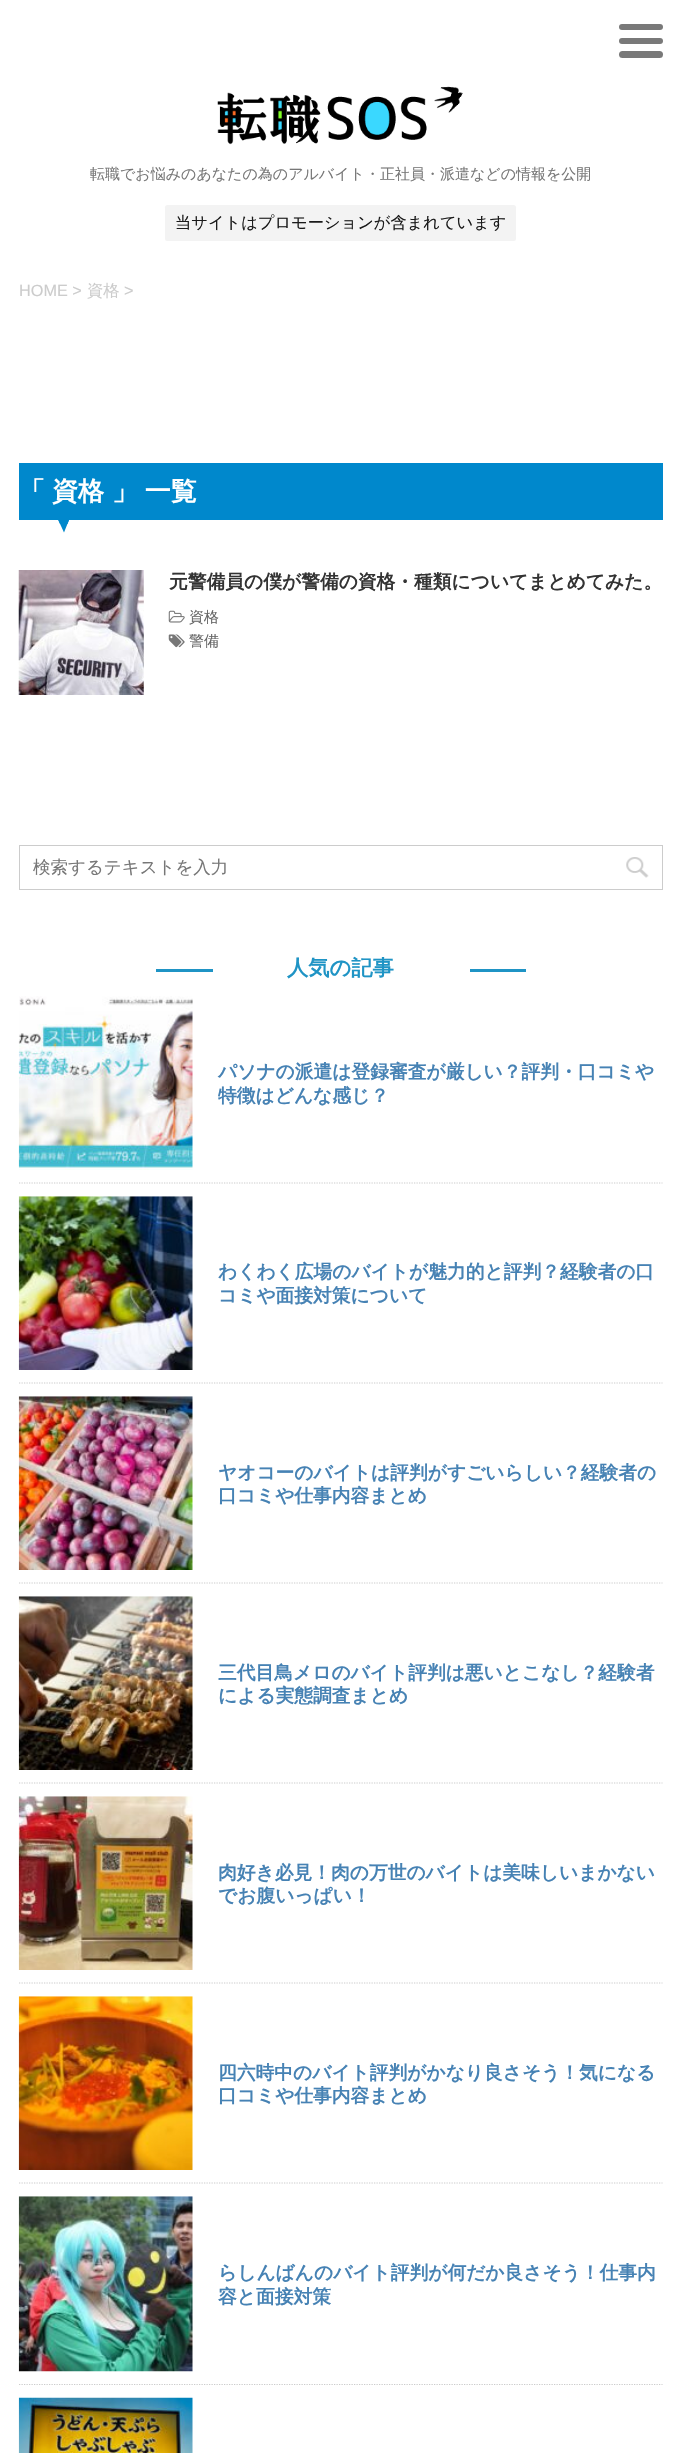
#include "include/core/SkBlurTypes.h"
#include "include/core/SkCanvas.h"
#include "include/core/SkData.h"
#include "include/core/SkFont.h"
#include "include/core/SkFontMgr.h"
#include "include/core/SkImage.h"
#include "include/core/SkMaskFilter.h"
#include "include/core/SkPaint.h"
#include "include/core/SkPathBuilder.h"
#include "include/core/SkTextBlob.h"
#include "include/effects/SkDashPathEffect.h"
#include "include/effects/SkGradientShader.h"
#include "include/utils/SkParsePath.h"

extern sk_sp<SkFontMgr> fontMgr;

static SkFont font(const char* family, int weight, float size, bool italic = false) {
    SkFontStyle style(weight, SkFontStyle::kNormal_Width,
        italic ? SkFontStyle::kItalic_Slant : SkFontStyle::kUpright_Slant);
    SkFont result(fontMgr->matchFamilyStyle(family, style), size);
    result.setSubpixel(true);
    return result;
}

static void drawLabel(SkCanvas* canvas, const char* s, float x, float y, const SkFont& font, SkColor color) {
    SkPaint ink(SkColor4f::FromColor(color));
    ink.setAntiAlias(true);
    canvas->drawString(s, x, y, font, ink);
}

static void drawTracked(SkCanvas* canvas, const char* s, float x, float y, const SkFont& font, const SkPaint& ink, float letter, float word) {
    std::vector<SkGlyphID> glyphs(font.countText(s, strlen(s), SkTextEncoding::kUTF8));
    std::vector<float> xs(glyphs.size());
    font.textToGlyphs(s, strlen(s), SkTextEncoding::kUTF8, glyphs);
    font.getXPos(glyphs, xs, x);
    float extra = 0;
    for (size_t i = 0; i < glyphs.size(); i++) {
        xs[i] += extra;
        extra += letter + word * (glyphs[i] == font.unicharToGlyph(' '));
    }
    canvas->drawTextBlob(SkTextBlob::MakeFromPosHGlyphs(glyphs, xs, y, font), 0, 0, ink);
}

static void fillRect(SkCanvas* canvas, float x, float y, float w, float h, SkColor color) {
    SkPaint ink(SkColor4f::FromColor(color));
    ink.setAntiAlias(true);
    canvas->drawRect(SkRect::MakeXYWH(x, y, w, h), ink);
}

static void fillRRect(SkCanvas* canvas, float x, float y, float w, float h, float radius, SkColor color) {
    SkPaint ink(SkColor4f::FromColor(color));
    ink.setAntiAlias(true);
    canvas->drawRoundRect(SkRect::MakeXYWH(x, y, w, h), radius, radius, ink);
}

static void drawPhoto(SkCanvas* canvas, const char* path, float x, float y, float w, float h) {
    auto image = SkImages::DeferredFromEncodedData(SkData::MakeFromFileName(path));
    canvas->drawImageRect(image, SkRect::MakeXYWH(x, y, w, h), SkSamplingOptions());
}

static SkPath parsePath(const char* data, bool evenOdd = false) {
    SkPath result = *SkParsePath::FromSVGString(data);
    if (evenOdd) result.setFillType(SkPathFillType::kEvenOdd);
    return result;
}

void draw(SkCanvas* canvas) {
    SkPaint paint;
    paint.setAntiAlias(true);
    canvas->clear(0xFFFFFFFF);
    fillRRect(canvas, 619, 38, 44, 6, 3, 0xFF797979);
    fillRRect(canvas, 619, 24, 44, 6, 3, 0xFF797979);
    fillRRect(canvas, 619, 51, 44, 7, 3.5f, 0xFF797979);
    drawPhoto(canvas, "assets/img1.png", 217, 86, 246, 59);
    SkFont font1 = font("WenQuanYi Zen Hei", 500, 15);
    drawLabel(canvas, "転職でお悩みのあなたの為のアルバイト・正社員・派遣などの情報を公開", 90, 179, font1, 0xFF777777);
    fillRRect(canvas, 165, 205, 351, 36, 2.5f, 0xFFF3F3F3);
    SkFont font2 = font("WenQuanYi Zen Hei", 500, 16.25f);
    drawLabel(canvas, "当サイトはプロモーションが含まれています", 175, 228, font2, 0xFF1A1A1A);
    SkFont font3 = font("Liberation Sans", 400, 16.25f);
    drawLabel(canvas, "HOME >", 19, 296, font3, 0xFFCCCCCC);
    drawLabel(canvas, "資格", 87, 296, font2, 0xFFCCCCCC);
    drawLabel(canvas, ">", 124, 296, font3, 0xFFCCCCCC);
    fillRect(canvas, 19, 463, 644, 57, 0xFF0088CC);
    SkFont font4 = font("WenQuanYi Zen Hei", 700, 26);
    drawLabel(canvas, "「", 19, 500, font4, 0xFFFFFFFF);
    drawLabel(canvas, "資格", 52, 500, font4, 0xFFFFFFFF);
    paint.setColor(0xFFFFFFFF);
    drawTracked(canvas, "」 一覧", 112, 500, font4, paint, 0, -1);
    paint.setColor(0xFF0088CC);
    canvas->drawPath(parsePath("M56 515H71L64 532.5Z"), paint);
    canvas->drawPath(parsePath("M59 515C58 515 57 515.5 56.5 516L60 524H67.5L70.5 516C70.5 515.5 69.5 515 69 515Z"), paint);
    drawPhoto(canvas, "assets/img2.png", 18, 570, 126, 125);
    SkFont font5 = font("WenQuanYi Zen Hei", 700, 18.75f);
    drawLabel(canvas, "元警備員の僕が警備の資格・種類についてまとめてみた。", 169, 588, font5, 0xFF333333);
    drawPhoto(canvas, "assets/img3.png", 168, 610, 17, 13);
    drawLabel(canvas, "資格", 189, 622, font1, 0xFF666666);
    drawPhoto(canvas, "assets/img4.png", 168, 634, 17, 14);
    drawLabel(canvas, "警備", 189, 646, font1, 0xFF666666);
    paint.setStroke(true);
    paint.setStrokeWidth(1);
    paint.setColor(0xFFCCCCCC);
    canvas->drawRect(SkRect::MakeXYWH(19.5f, 845.5f, 643, 44), paint);
    SkFont font6 = font("WenQuanYi Zen Hei", 500, 17.5f);
    drawLabel(canvas, "検索するテキストを入力", 33, 873, font6, 0xFF777777);
    drawPhoto(canvas, "assets/img5.png", 626, 857, 23, 21);
    fillRect(canvas, 156, 969, 57, 3, 0xFF1F94C5);
    SkFont font7 = font("WenQuanYi Zen Hei", 700, 21.25f);
    drawLabel(canvas, "人気の記事", 287, 975, font7, 0xFF1F94C5);
    fillRect(canvas, 470, 969, 56, 3, 0xFF1F94C5);
    paint.setStrokeWidth(1.2f);
    paint.setPathEffect(SkDashPathEffect::Make({{1.25f, 1.25f}}, 0));
    canvas->drawPath(parsePath("M19 1183H662.5"), paint);
    paint.setPathEffect(nullptr);
    drawPhoto(canvas, "assets/img6.png", 18, 996, 175, 174);
    drawLabel(canvas, "パソナの派遣は登録審査が厳しい？評判・口コミや", 218, 1078, font5, 0xFF4682B4);
    drawLabel(canvas, "特徴はどんな感じ？", 218, 1102, font5, 0xFF4682B4);
    paint.setPathEffect(SkDashPathEffect::Make({{1.25f, 1.25f}}, 0));
    canvas->drawPath(parsePath("M19 1383H662.5"), paint);
    paint.setPathEffect(nullptr);
    drawPhoto(canvas, "assets/img7.png", 18, 1196, 175, 174);
    drawLabel(canvas, "わくわく広場のバイトが魅力的と評判？経験者の口", 218, 1278, font5, 0xFF4682B4);
    drawLabel(canvas, "コミや面接対策について", 218, 1302, font5, 0xFF4682B4);
    paint.setPathEffect(SkDashPathEffect::Make({{1.25f, 1.25f}}, 0));
    canvas->drawPath(parsePath("M19 1583H662.5"), paint);
    paint.setPathEffect(nullptr);
    drawPhoto(canvas, "assets/img8.png", 18, 1396, 175, 174);
    drawLabel(canvas, "ヤオコーのバイトは評判がすごいらしい？経験者の", 218, 1479, font5, 0xFF4682B4);
    drawLabel(canvas, "口コミや仕事内容まとめ", 218, 1502, font5, 0xFF4682B4);
    paint.setPathEffect(SkDashPathEffect::Make({{1.25f, 1.25f}}, 0));
    canvas->drawPath(parsePath("M19 1783H662.5"), paint);
    paint.setPathEffect(nullptr);
    drawPhoto(canvas, "assets/img9.png", 18, 1596, 175, 174);
    drawLabel(canvas, "三代目鳥メロのバイト評判は悪いとこなし？経験者", 218, 1679, font5, 0xFF4682B4);
    drawLabel(canvas, "による実態調査まとめ", 218, 1702, font5, 0xFF4682B4);
    paint.setPathEffect(SkDashPathEffect::Make({{1.25f, 1.25f}}, 0));
    canvas->drawPath(parsePath("M19 1983H662.5"), paint);
    paint.setPathEffect(nullptr);
    drawPhoto(canvas, "assets/img10.png", 18, 1796, 175, 174);
    drawLabel(canvas, "肉好き必見！肉の万世のバイトは美味しいまかない", 218, 1879, font5, 0xFF4682B4);
    drawLabel(canvas, "でお腹いっぱい！", 218, 1902, font5, 0xFF4682B4);
    paint.setPathEffect(SkDashPathEffect::Make({{1.25f, 1.25f}}, 0));
    canvas->drawPath(parsePath("M19 2183H662.5"), paint);
    paint.setPathEffect(nullptr);
    drawPhoto(canvas, "assets/img11.png", 18, 1996, 175, 174);
    drawLabel(canvas, "四六時中のバイト評判がかなり良さそう！気になる", 218, 2079, font5, 0xFF4682B4);
    drawLabel(canvas, "口コミや仕事内容まとめ", 218, 2102, font5, 0xFF4682B4);
    paint.setPathEffect(SkDashPathEffect::Make({{1.25f, 1.25f}}, 0));
    canvas->drawPath(parsePath("M19 2384.5H662.5"), paint);
    paint.setPathEffect(nullptr);
    drawPhoto(canvas, "assets/img12.png", 18, 2196, 175, 176);
    drawLabel(canvas, "らしんばんのバイト評判が何だか良さそう！仕事内", 218, 2279, font5, 0xFF4682B4);
    drawLabel(canvas, "容と面接対策", 218, 2303, font5, 0xFF4682B4);
    drawPhoto(canvas, "assets/img13.png", 18, 2397, 175, 56);
}
